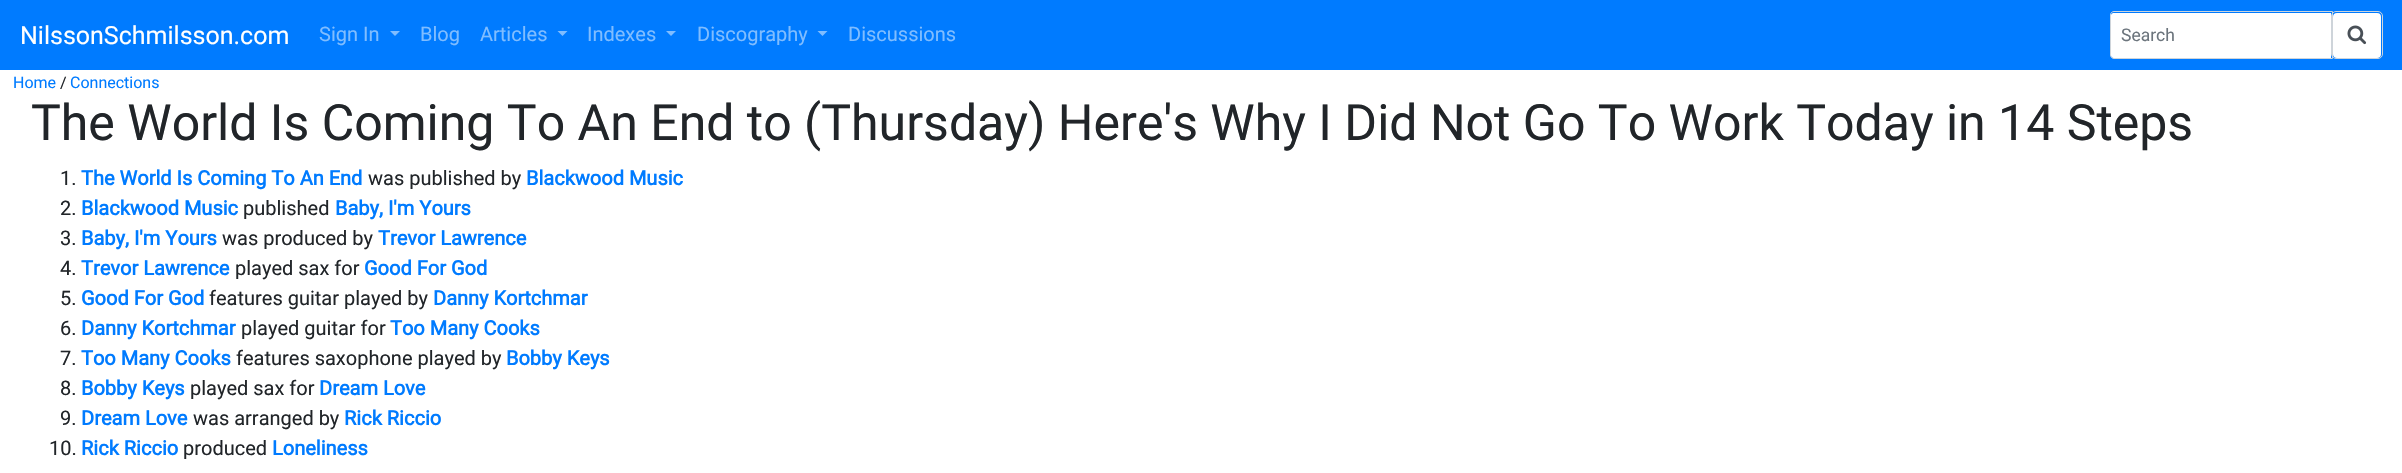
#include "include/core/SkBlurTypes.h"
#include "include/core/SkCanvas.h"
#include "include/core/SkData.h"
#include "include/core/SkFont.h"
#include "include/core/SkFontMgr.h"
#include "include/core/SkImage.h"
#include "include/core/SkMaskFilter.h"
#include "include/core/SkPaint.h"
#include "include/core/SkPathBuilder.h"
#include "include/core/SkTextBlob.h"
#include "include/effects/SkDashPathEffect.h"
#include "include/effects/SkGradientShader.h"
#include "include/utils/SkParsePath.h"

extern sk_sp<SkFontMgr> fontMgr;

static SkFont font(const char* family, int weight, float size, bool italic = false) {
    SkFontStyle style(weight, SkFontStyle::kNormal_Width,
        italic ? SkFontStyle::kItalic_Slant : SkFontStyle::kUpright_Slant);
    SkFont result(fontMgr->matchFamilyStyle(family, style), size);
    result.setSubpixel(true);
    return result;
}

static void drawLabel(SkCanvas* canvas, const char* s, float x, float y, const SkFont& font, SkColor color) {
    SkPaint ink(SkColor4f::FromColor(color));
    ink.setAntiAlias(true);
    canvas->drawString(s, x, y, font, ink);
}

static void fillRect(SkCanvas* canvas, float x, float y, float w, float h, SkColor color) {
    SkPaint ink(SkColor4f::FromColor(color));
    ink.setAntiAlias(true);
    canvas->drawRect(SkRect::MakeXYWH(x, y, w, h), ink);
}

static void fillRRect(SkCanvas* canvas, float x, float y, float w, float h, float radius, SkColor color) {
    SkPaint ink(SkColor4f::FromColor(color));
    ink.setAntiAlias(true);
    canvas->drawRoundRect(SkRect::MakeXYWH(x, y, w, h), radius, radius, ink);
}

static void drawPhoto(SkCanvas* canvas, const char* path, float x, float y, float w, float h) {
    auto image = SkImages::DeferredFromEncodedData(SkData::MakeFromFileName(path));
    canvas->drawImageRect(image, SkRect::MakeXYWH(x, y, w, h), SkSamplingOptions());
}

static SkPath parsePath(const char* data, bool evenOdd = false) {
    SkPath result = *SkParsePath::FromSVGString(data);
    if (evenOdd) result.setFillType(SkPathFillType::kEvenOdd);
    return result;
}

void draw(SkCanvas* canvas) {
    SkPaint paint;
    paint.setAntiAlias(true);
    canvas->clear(0xFFFFFFFF);
    fillRect(canvas, 0, 0, 2402, 70, 0xFF007BFF);
    SkFont font1 = font("Roboto", 400, 25);
    drawLabel(canvas, "NilssonSchmilsson.com", 20, 44, font1, 0xFFFFFFFF);
    SkFont font2 = font("Roboto", 400, 20);
    drawLabel(canvas, "Sign In", 319, 41, font2, 0xFF80BDFF);
    paint.setColor(0xFF80BDFF);
    canvas->drawPath(parsePath("M390 31H400L395 36Z"), paint);
    drawLabel(canvas, "Blog", 420, 41, font2, 0xFF80BDFF);
    drawLabel(canvas, "Articles", 480, 41, font2, 0xFF80BDFF);
    canvas->drawPath(parsePath("M557.5 31H567.5L562.5 36Z"), paint);
    drawLabel(canvas, "Indexes", 587, 41, font2, 0xFF80BDFF);
    canvas->drawPath(parsePath("M666 31H676L671 36Z"), paint);
    drawLabel(canvas, "Discography", 697, 41, font2, 0xFF80BDFF);
    canvas->drawPath(parsePath("M817.5 31H827.5L822.5 36Z"), paint);
    drawLabel(canvas, "Discussions", 848, 41, font2, 0xFF80BDFF);
    paint.setColor(0xFFFFFFFF);
    canvas->drawPath(parsePath("M2113.5 13H2331V58H2113.5C2112 58 2111 57 2111 55.5V15.5C2111 14 2112 13 2113.5 13Z"), paint);
    fillRRect(canvas, 2333, 13, 48, 45, 4, 0xFFFFFFFF);
    paint.setStroke(true);
    paint.setStrokeWidth(1);
    paint.setColor(0xFFCED4DA);
    canvas->drawRoundRect(SkRect::MakeXYWH(2331.5f, 11.5f, 51, 47), 4.5f, 4.5f, paint);
    canvas->drawPath(parsePath("M2114 11.5H2332.5V58.5H2114C2112 58.5 2110.5 57 2110.5 55V15C2110.5 13 2112 11.5 2114 11.5Z"), paint);
    SkFont font3 = font("Roboto", 400, 17.5f);
    drawLabel(canvas, "Search", 2121, 41, font3, 0xFF6C757D);
    drawPhoto(canvas, "assets/img1.png", 2347, 25, 20, 20);
    SkFont font4 = font("Roboto", 400, 16);
    drawLabel(canvas, "Home", 13, 88, font4, 0xFF007BFF);
    drawLabel(canvas, "/", 60, 88, font4, 0xFF212529);
    drawLabel(canvas, "Connections", 70, 88, font4, 0xFF007BFF);
    SkFont font5 = font("Roboto", 400, 50);
    drawLabel(canvas, "The World Is Coming To An End to (Thursday) Here's Why I Did Not Go To Work Today in 14 Steps", 31, 140, font5, 0xFF212529);
    drawLabel(canvas, "1.", 60, 185, font2, 0xFF212529);
    SkFont font6 = font("Roboto", 700, 20);
    drawLabel(canvas, "The World Is Coming To An End", 81, 185, font6, 0xFF007BFF);
    drawLabel(canvas, "was published by", 368, 185, font2, 0xFF212529);
    drawLabel(canvas, "Blackwood Music", 526, 185, font6, 0xFF007BFF);
    drawLabel(canvas, "2.", 60, 215, font2, 0xFF212529);
    drawLabel(canvas, "Blackwood Music", 81, 215, font6, 0xFF007BFF);
    drawLabel(canvas, "published", 243, 215, font2, 0xFF212529);
    drawLabel(canvas, "Baby, I'm Yours", 335, 215, font6, 0xFF007BFF);
    drawLabel(canvas, "3.", 60, 245, font2, 0xFF212529);
    drawLabel(canvas, "Baby, I'm Yours", 81, 245, font6, 0xFF007BFF);
    drawLabel(canvas, "was produced by", 222, 245, font2, 0xFF212529);
    drawLabel(canvas, "Trevor Lawrence", 378, 245, font6, 0xFF007BFF);
    drawLabel(canvas, "4.", 60, 275, font2, 0xFF212529);
    drawLabel(canvas, "Trevor Lawrence", 81, 275, font6, 0xFF007BFF);
    drawLabel(canvas, "played sax for", 235, 275, font2, 0xFF212529);
    drawLabel(canvas, "Good For God", 364, 275, font6, 0xFF007BFF);
    drawLabel(canvas, "5.", 60, 305, font2, 0xFF212529);
    drawLabel(canvas, "Good For God", 81, 305, font6, 0xFF007BFF);
    drawLabel(canvas, "features guitar played by", 209, 305, font2, 0xFF212529);
    drawLabel(canvas, "Danny Kortchmar", 433, 305, font6, 0xFF007BFF);
    drawLabel(canvas, "6.", 60, 335, font2, 0xFF212529);
    drawLabel(canvas, "Danny Kortchmar", 81, 335, font6, 0xFF007BFF);
    drawLabel(canvas, "played guitar for", 241, 335, font2, 0xFF212529);
    drawLabel(canvas, "Too Many Cooks", 390, 335, font6, 0xFF007BFF);
    drawLabel(canvas, "7.", 60, 365, font2, 0xFF212529);
    drawLabel(canvas, "Too Many Cooks", 81, 365, font6, 0xFF007BFF);
    drawLabel(canvas, "features saxophone played by", 236, 365, font2, 0xFF212529);
    drawLabel(canvas, "Bobby Keys", 506, 365, font6, 0xFF007BFF);
    drawLabel(canvas, "8.", 60, 395, font2, 0xFF212529);
    drawLabel(canvas, "Bobby Keys", 81, 395, font6, 0xFF007BFF);
    drawLabel(canvas, "played sax for", 190, 395, font2, 0xFF212529);
    drawLabel(canvas, "Dream Love", 319, 395, font6, 0xFF007BFF);
    drawLabel(canvas, "9.", 60, 425, font2, 0xFF212529);
    drawLabel(canvas, "Dream Love", 81, 425, font6, 0xFF007BFF);
    drawLabel(canvas, "was arranged by", 193, 425, font2, 0xFF212529);
    drawLabel(canvas, "Rick Riccio", 344, 425, font6, 0xFF007BFF);
    drawLabel(canvas, "10.", 49, 455, font2, 0xFF212529);
    drawLabel(canvas, "Rick Riccio", 81, 455, font6, 0xFF007BFF);
    drawLabel(canvas, "produced", 183, 455, font2, 0xFF212529);
    drawLabel(canvas, "Loneliness", 272, 455, font6, 0xFF007BFF);
}
